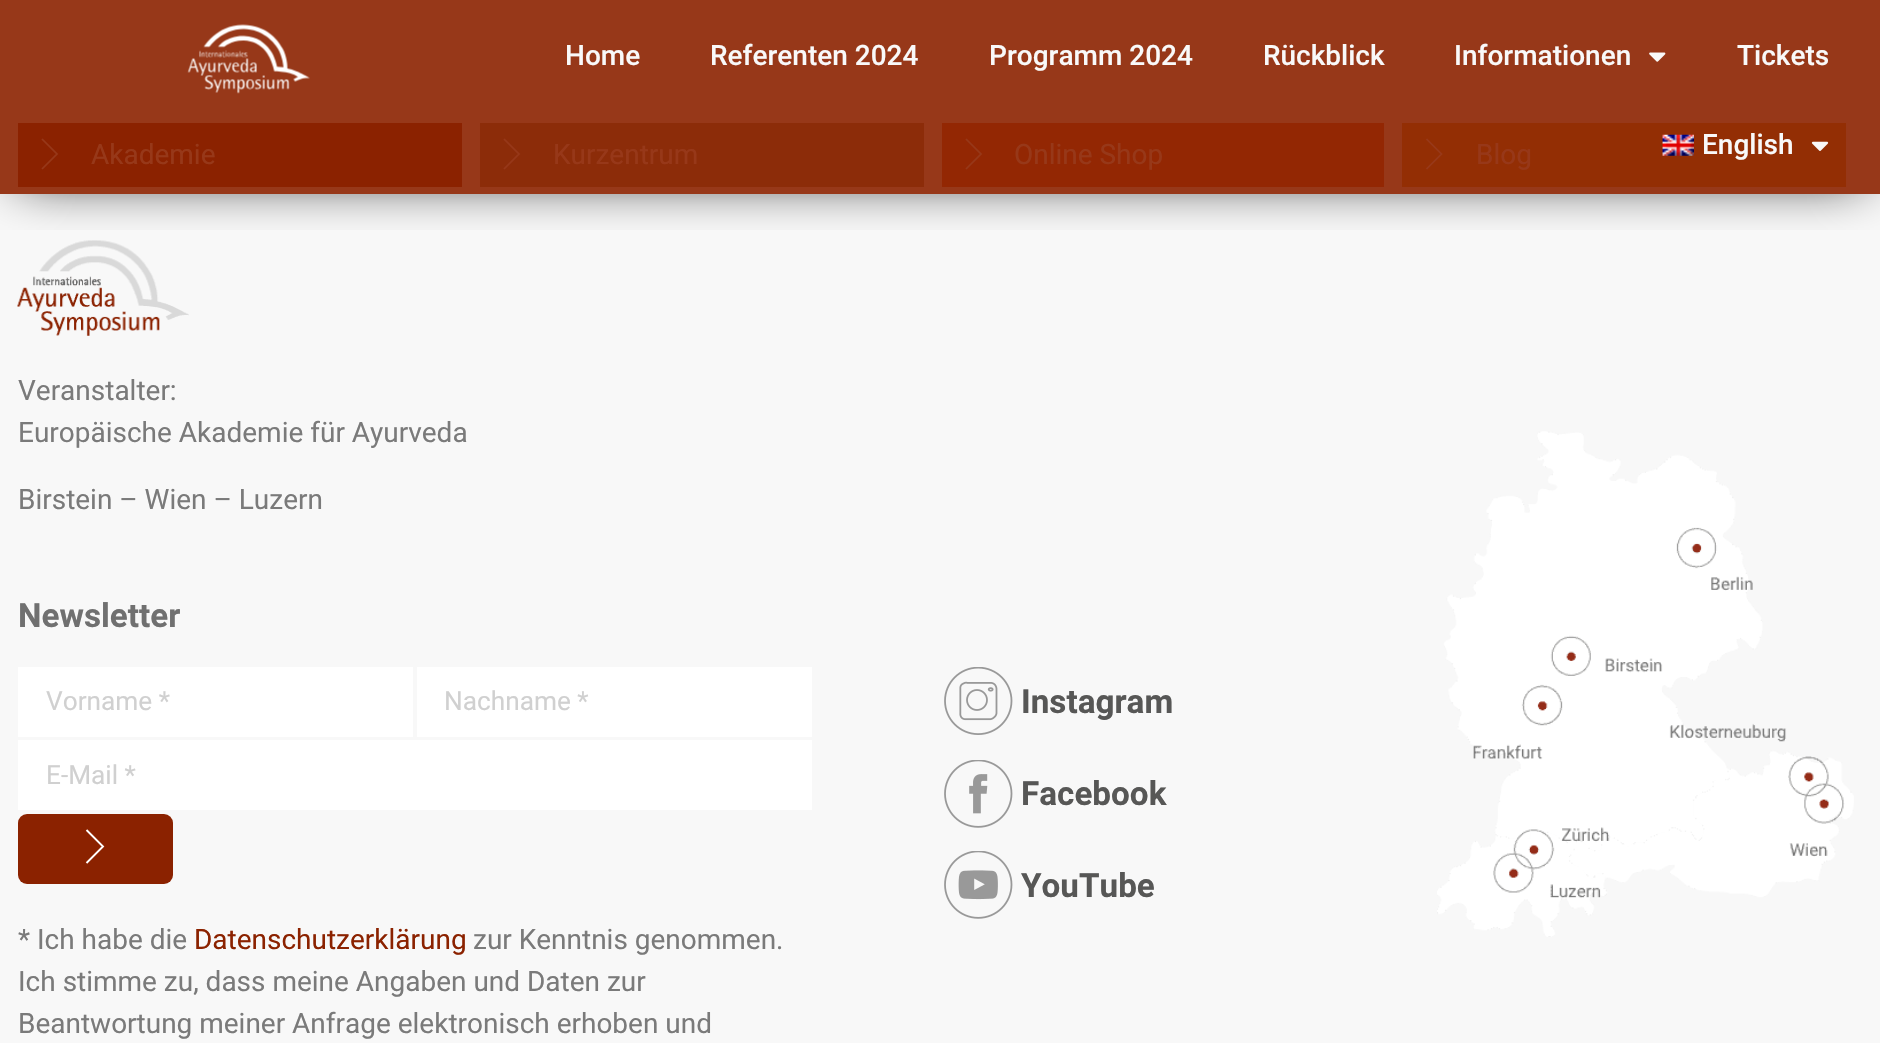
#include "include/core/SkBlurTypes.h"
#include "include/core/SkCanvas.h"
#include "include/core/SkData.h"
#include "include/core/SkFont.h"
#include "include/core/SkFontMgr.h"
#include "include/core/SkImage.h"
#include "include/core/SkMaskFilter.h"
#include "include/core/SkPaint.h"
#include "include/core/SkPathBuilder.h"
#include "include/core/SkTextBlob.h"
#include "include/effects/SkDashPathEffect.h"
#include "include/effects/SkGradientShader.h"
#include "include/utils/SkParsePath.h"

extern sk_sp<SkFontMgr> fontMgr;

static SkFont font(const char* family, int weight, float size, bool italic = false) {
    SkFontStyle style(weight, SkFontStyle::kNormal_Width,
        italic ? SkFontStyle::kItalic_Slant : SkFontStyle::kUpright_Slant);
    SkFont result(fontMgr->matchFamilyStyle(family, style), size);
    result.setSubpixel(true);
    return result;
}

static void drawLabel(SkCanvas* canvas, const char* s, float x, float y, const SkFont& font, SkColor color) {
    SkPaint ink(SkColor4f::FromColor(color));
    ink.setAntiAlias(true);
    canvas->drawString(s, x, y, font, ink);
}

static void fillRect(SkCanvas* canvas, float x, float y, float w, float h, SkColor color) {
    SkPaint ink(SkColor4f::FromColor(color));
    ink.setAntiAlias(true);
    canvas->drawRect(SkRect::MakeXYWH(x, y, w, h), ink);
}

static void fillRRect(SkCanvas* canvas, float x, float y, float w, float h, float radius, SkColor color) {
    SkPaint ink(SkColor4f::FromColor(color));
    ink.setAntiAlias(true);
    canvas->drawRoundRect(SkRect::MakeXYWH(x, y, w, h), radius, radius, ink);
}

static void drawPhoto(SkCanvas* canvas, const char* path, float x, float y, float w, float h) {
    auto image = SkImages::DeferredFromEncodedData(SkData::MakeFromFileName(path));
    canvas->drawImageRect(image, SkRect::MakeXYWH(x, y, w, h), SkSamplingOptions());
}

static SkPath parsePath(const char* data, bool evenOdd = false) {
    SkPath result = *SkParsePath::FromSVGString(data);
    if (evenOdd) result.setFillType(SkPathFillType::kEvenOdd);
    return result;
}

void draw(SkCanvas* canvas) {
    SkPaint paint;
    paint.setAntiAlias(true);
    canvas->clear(0xFF973819);
    fillRect(canvas, 18, 123, 444, 64, 0xFF8B2200);
    paint.setStroke(true);
    paint.setStrokeWidth(1.7f);
    paint.setColor(0xFF973819);
    canvas->drawPath(parsePath("M42 139L57 154L42 169"), paint);
    fillRect(canvas, 480, 123, 444, 64, 0xFF8C2C09);
    canvas->drawPath(parsePath("M504 139L519 154L504 169"), paint);
    fillRect(canvas, 942, 123, 442, 64, 0xFF932703);
    canvas->drawPath(parsePath("M966 139L981 154L966 169"), paint);
    fillRect(canvas, 1402, 123, 444, 64, 0xFF932E04);
    canvas->drawPath(parsePath("M1426.5 139L1441.5 154L1426.5 169"), paint);
    fillRect(canvas, 0, 194, 1880, 849, 0xFFF8F8F8);
    drawPhoto(canvas, "assets/img5.png", 17, 240, 172, 96);
    canvas->save();
    canvas->clipRect(SkRect::MakeXYWH(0, 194, 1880, 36));
    paint.setStroke(false);
    paint.setColor(0xFF000000);
    paint.setMaskFilter(SkMaskFilter::MakeBlur(kNormal_SkBlurStyle, 26));
    canvas->drawRect(SkRect::MakeXYWH(18, 18, 1846, 159), paint);
    paint.setMaskFilter(nullptr);
    canvas->restore();
    drawPhoto(canvas, "assets/img1.png", 187, 24, 123, 70);
    SkFont font1 = font("Roboto", 500, 28);
    drawLabel(canvas, "Home", 565, 65, font1, 0xFFF9F9F9);
    drawLabel(canvas, "Referenten 2024", 710, 65, font1, 0xFFF9F9F9);
    drawLabel(canvas, "Programm 2024", 989, 65, font1, 0xFFF9F9F9);
    drawLabel(canvas, "Rückblick", 1263, 65, font1, 0xFFF9F9F9);
    drawLabel(canvas, "Informationen", 1454, 65, font1, 0xFFF9F9F9);
    drawPhoto(canvas, "assets/img2.png", 1649, 52, 17, 10);
    drawLabel(canvas, "Tickets", 1737, 65, font1, 0xFFF9F9F9);
    drawPhoto(canvas, "assets/img3.png", 1662, 134, 32, 22);
    drawLabel(canvas, "English", 1702, 154, font1, 0xFFF9F9F9);
    drawPhoto(canvas, "assets/img4.png", 1811, 141, 18, 10);
    SkFont font2 = font("Roboto", 400, 28);
    drawLabel(canvas, "Akademie", 91, 164, font2, 0xFF973819);
    drawLabel(canvas, "Kurzentrum", 553, 164, font2, 0xFF973819);
    drawLabel(canvas, "Online Shop", 1014, 164, font2, 0xFF973819);
    drawLabel(canvas, "Blog", 1476, 164, font2, 0xFF973819);
    drawLabel(canvas, "Veranstalter:", 18, 400, font2, 0xFF7A7A7A);
    drawLabel(canvas, "Europäische Akademie für Ayurveda", 18, 442, font2, 0xFF7A7A7A);
    drawLabel(canvas, "Birstein – Wien – Luzern", 18, 509, font2, 0xFF7A7A7A);
    SkFont font3 = font("Roboto", 700, 33.25f);
    drawLabel(canvas, "Newsletter", 18, 627, font3, 0xFF707070);
    fillRect(canvas, 18, 667, 395, 70, 0xFFFFFFFF);
    SkFont font4 = font("Roboto", 400, 26.25f);
    drawLabel(canvas, "Vorname *", 46, 710, font4, 0xFFD0D0D0);
    fillRect(canvas, 417, 667, 395, 70, 0xFFFFFFFF);
    drawLabel(canvas, "Nachname *", 444, 710, font4, 0xFFD0D0D0);
    fillRect(canvas, 18, 740, 794, 70, 0xFFFFFFFF);
    drawLabel(canvas, "E-Mail *", 46, 784, font4, 0xFFD0D0D0);
    fillRRect(canvas, 18, 814, 155, 70, 9, 0xFF8B2200);
    paint.setStroke(true);
    paint.setStrokeWidth(1.9f);
    paint.setColor(0xFFFFFFFF);
    canvas->drawPath(parsePath("M86.5 830L103 846.5L86.5 863"), paint);
    drawLabel(canvas, "* Ich habe die", 18, 949, font2, 0xFF7A7A7A);
    drawLabel(canvas, "Datenschutzerklärung", 194, 949, font2, 0xFF8B2200);
    drawLabel(canvas, "zur Kenntnis genommen.", 473, 949, font2, 0xFF7A7A7A);
    drawLabel(canvas, "Ich stimme zu, dass meine Angaben und Daten zur", 18, 991, font2, 0xFF7A7A7A);
    drawLabel(canvas, "Beantwortung meiner Anfrage elektronisch erhoben und", 18, 1033, font2, 0xFF7A7A7A);
    drawPhoto(canvas, "assets/img6.png", 944, 667, 69, 68);
    drawLabel(canvas, "Instagram", 1021, 713, font3, 0xFF575756);
    drawPhoto(canvas, "assets/img7.png", 944, 760, 69, 68);
    drawLabel(canvas, "Facebook", 1021, 805, font3, 0xFF575756);
    drawPhoto(canvas, "assets/img8.png", 944, 851, 69, 68);
    drawLabel(canvas, "YouTube", 1021, 897, font3, 0xFF575756);
    drawPhoto(canvas, "assets/img9.png", 1437, 431, 417, 506);
}
